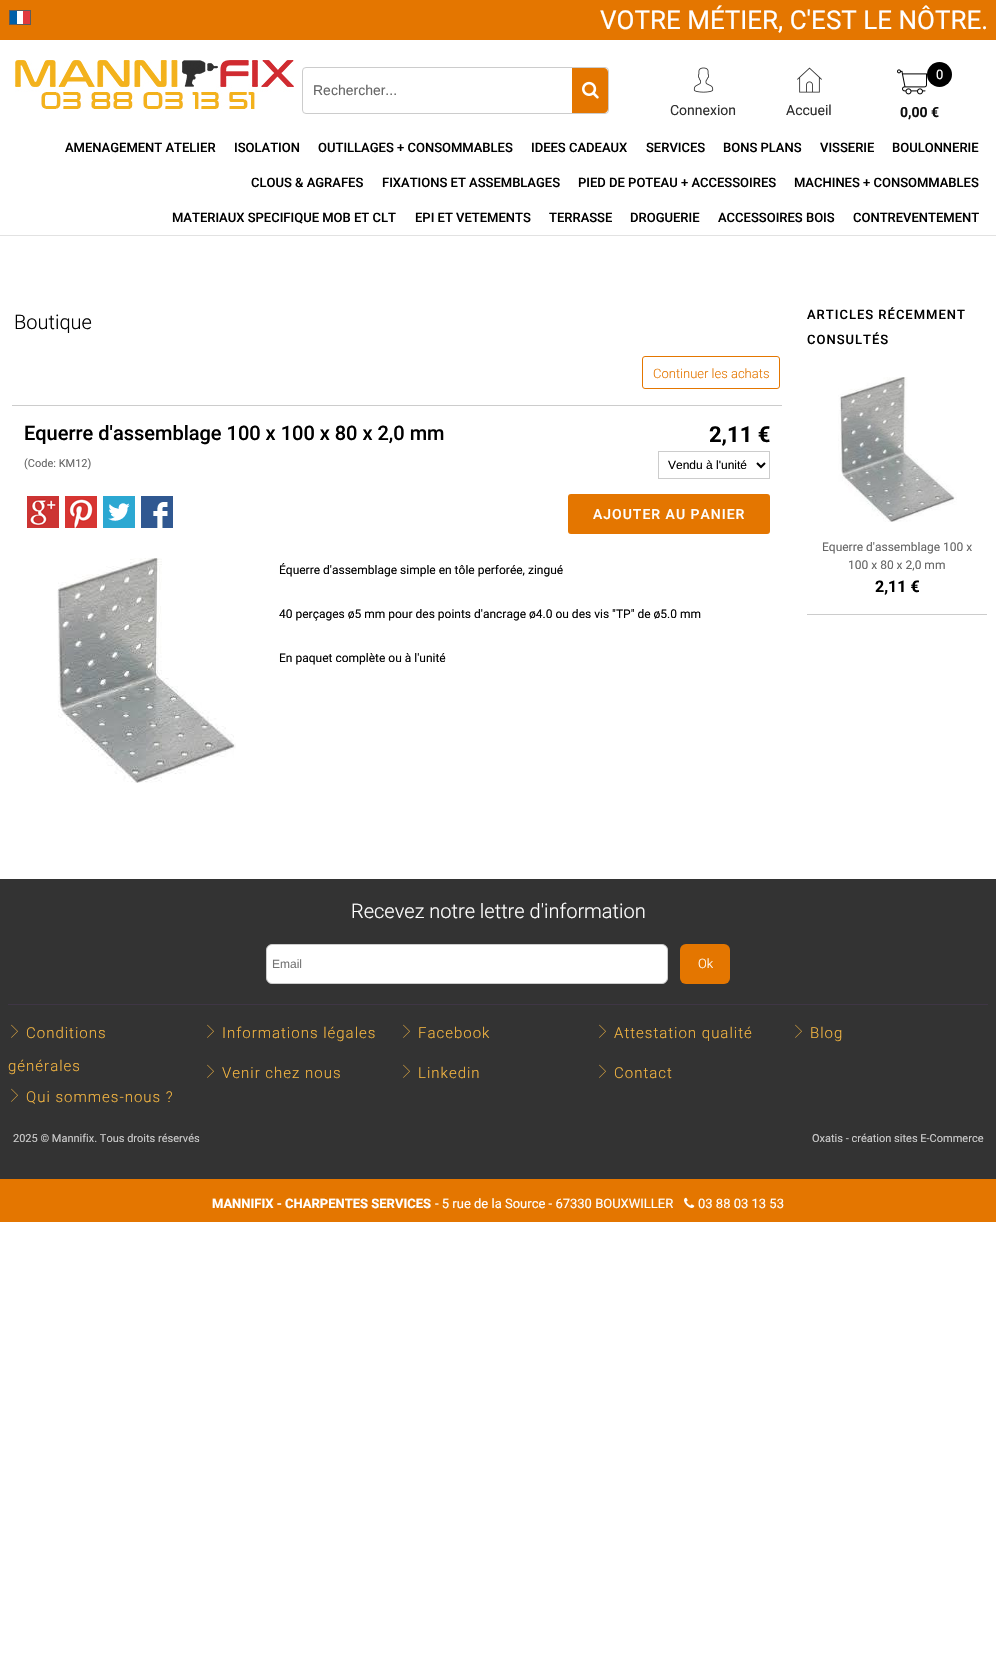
#include "include/core/SkBlurTypes.h"
#include "include/core/SkCanvas.h"
#include "include/core/SkData.h"
#include "include/core/SkFont.h"
#include "include/core/SkFontMgr.h"
#include "include/core/SkImage.h"
#include "include/core/SkMaskFilter.h"
#include "include/core/SkPaint.h"
#include "include/core/SkPathBuilder.h"
#include "include/core/SkTextBlob.h"
#include "include/effects/SkDashPathEffect.h"
#include "include/effects/SkGradientShader.h"
#include "include/utils/SkParsePath.h"

extern sk_sp<SkFontMgr> fontMgr;

static SkFont font(const char* family, int weight, float size, bool italic = false) {
    SkFontStyle style(weight, SkFontStyle::kNormal_Width,
        italic ? SkFontStyle::kItalic_Slant : SkFontStyle::kUpright_Slant);
    SkFont result(fontMgr->matchFamilyStyle(family, style), size);
    result.setSubpixel(true);
    return result;
}

static void drawLabel(SkCanvas* canvas, const char* s, float x, float y, const SkFont& font, SkColor color) {
    SkPaint ink(SkColor4f::FromColor(color));
    ink.setAntiAlias(true);
    canvas->drawString(s, x, y, font, ink);
}

static void drawTracked(SkCanvas* canvas, const char* s, float x, float y, const SkFont& font, const SkPaint& ink, float letter, float word) {
    std::vector<SkGlyphID> glyphs(font.countText(s, strlen(s), SkTextEncoding::kUTF8));
    std::vector<float> xs(glyphs.size());
    font.textToGlyphs(s, strlen(s), SkTextEncoding::kUTF8, glyphs);
    font.getXPos(glyphs, xs, x);
    float extra = 0;
    for (size_t i = 0; i < glyphs.size(); i++) {
        xs[i] += extra;
        extra += letter + word * (glyphs[i] == font.unicharToGlyph(' '));
    }
    canvas->drawTextBlob(SkTextBlob::MakeFromPosHGlyphs(glyphs, xs, y, font), 0, 0, ink);
}

static void fillRect(SkCanvas* canvas, float x, float y, float w, float h, SkColor color) {
    SkPaint ink(SkColor4f::FromColor(color));
    ink.setAntiAlias(true);
    canvas->drawRect(SkRect::MakeXYWH(x, y, w, h), ink);
}

static void fillRRect(SkCanvas* canvas, float x, float y, float w, float h, float radius, SkColor color) {
    SkPaint ink(SkColor4f::FromColor(color));
    ink.setAntiAlias(true);
    canvas->drawRoundRect(SkRect::MakeXYWH(x, y, w, h), radius, radius, ink);
}

static void drawPhoto(SkCanvas* canvas, const char* path, float x, float y, float w, float h) {
    auto image = SkImages::DeferredFromEncodedData(SkData::MakeFromFileName(path));
    canvas->drawImageRect(image, SkRect::MakeXYWH(x, y, w, h), SkSamplingOptions());
}

static SkPath parsePath(const char* data, bool evenOdd = false) {
    SkPath result = *SkParsePath::FromSVGString(data);
    if (evenOdd) result.setFillType(SkPathFillType::kEvenOdd);
    return result;
}

void draw(SkCanvas* canvas) {
    SkPaint paint;
    paint.setAntiAlias(true);
    canvas->clear(0xFFFFFFFF);
    fillRect(canvas, 0, 0, 996, 40, 0xFFE47600);
    fillRect(canvas, 0, 235, 996, 1, 0xFFE2E2E2);
    drawPhoto(canvas, "assets/img1.png", 10, 11, 20, 13);
    paint.setStroke(true);
    paint.setStrokeWidth(1);
    paint.setColor(0xFF5C5C5C);
    canvas->drawRect(SkRect::MakeXYWH(9.5f, 10.5f, 21, 14), paint);
    SkFont font1 = font("Roboto", 400, 26);
    drawLabel(canvas, "VOTRE MÉTIER, C'EST LE NÔTRE.", 600, 29, font1, 0xFFFFFFFF);
    drawPhoto(canvas, "assets/img2.png", 15, 60, 279, 49);
    paint.setColor(0xFFCCCCCC);
    canvas->drawRoundRect(SkRect::MakeXYWH(302.5f, 67.5f, 306, 46), 3.5f, 3.5f, paint);
    SkFont font2 = font("Liberation Sans", 400, 14);
    drawLabel(canvas, "Rechercher...", 313, 95, font2, 0xFF666666);
    paint.setStroke(false);
    paint.setColor(0xFFE47600);
    canvas->drawPath(parsePath("M572 68H604C606 68 608 70 608 72V109C608 111 606 113 604 113H572Z"), paint);
    drawPhoto(canvas, "assets/img3.png", 582, 81, 17, 18);
    drawPhoto(canvas, "assets/img4.png", 693, 67, 21, 26);
    SkFont font3 = font("Roboto", 400, 14);
    drawLabel(canvas, "Connexion", 670, 115, font3, 0xFF2E2E2E);
    drawPhoto(canvas, "assets/img5.png", 797, 67, 25, 26);
    drawLabel(canvas, "Accueil", 786, 115, font3, 0xFF2E2E2E);
    drawPhoto(canvas, "assets/img6.png", 897, 69, 30, 26);
    paint.setColor(0xFF000000);
    canvas->drawCircle(939.5f, 74.5f, 12.5f, paint);
    SkFont font4 = font("Roboto", 400, 13);
    drawLabel(canvas, "0", 936, 79, font4, 0xFFFFFFFF);
    SkFont font5 = font("Roboto", 700, 14);
    drawLabel(canvas, "0,00 €", 900, 117, font5, 0xFF0F0F0F);
    SkFont font6 = font("Roboto", 500, 13);
    drawLabel(canvas, "AMENAGEMENT ATELIER", 65, 152, font6, 0xFF000000);
    drawLabel(canvas, "ISOLATION", 234, 152, font6, 0xFF000000);
    drawLabel(canvas, "OUTILLAGES + CONSOMMABLES", 318, 152, font6, 0xFF000000);
    drawLabel(canvas, "IDEES CADEAUX", 531, 152, font6, 0xFF000000);
    drawLabel(canvas, "SERVICES", 646, 152, font6, 0xFF000000);
    drawLabel(canvas, "BONS PLANS", 723, 152, font6, 0xFF000000);
    drawLabel(canvas, "VISSERIE", 820, 152, font6, 0xFF000000);
    drawLabel(canvas, "BOULONNERIE", 892, 152, font6, 0xFF000000);
    drawLabel(canvas, "CLOUS & AGRAFES", 251, 187, font6, 0xFF000000);
    drawLabel(canvas, "FIXATIONS ET ASSEMBLAGES", 382, 187, font6, 0xFF000000);
    drawLabel(canvas, "PIED DE POTEAU + ACCESSOIRES", 578, 187, font6, 0xFF000000);
    drawLabel(canvas, "MACHINES + CONSOMMABLES", 794, 187, font6, 0xFF000000);
    drawLabel(canvas, "MATERIAUX SPECIFIQUE MOB ET CLT", 172, 222, font6, 0xFF000000);
    drawLabel(canvas, "EPI ET VETEMENTS", 415, 222, font6, 0xFF000000);
    drawLabel(canvas, "TERRASSE", 549, 222, font6, 0xFF000000);
    drawLabel(canvas, "DROGUERIE", 630, 222, font6, 0xFF000000);
    drawLabel(canvas, "ACCESSOIRES BOIS", 718, 222, font6, 0xFF000000);
    drawLabel(canvas, "CONTREVENTEMENT", 853, 222, font6, 0xFF000000);
    SkFont font7 = font("Roboto", 300, 20);
    drawLabel(canvas, "Boutique", 14, 329, font7, 0xFF000000);
    paint.setStroke(true);
    paint.setColor(0xFFE47600);
    canvas->drawRoundRect(SkRect::MakeXYWH(642.5f, 356.5f, 137, 32), 2.5f, 2.5f, paint);
    SkFont font8 = font("Roboto", 300, 13);
    drawLabel(canvas, "Continuer les achats", 653, 378, font8, 0xFFE47600);
    fillRect(canvas, 12, 405, 770, 1, 0xFFCCCCCC);
    SkFont font9 = font("Roboto", 500, 20);
    drawLabel(canvas, "Equerre d'assemblage 100 x 100 x 80 x 2,0 mm", 24, 440, font9, 0xFF000000);
    SkFont font10 = font("Roboto", 400, 11);
    drawLabel(canvas, "(Code: KM12)", 24, 467, font10, 0xFF666666);
    drawPhoto(canvas, "assets/img7.png", 27, 496, 32, 32);
    drawPhoto(canvas, "assets/img8.png", 65, 496, 32, 32);
    drawPhoto(canvas, "assets/img9.png", 103, 496, 32, 32);
    drawPhoto(canvas, "assets/img10.png", 141, 496, 32, 32);
    SkFont font11 = font("Roboto", 700, 22);
    drawLabel(canvas, "2,11 €", 709, 442, font11, 0xFF000000);
    paint.setColor(0xFFCCCCCC);
    canvas->drawRect(SkRect::MakeXYWH(658.5f, 451.5f, 111, 27), paint);
    paint.setStrokeWidth(2);
    paint.setColor(0xFF000000);
    canvas->drawPath(parsePath("M757 463L761 467L765 463"), paint);
    SkFont font12 = font("Liberation Sans", 400, 12);
    drawLabel(canvas, "Vendu à l'unité", 668, 469, font12, 0xFF000000);
    fillRRect(canvas, 568, 494, 202, 40, 3, 0xFFE47600);
    SkFont font13 = font("Roboto", 500, 14);
    paint.setStroke(false);
    paint.setColor(0xFFFFFFFF);
    drawTracked(canvas, "AJOUTER AU PANIER", 593, 519, font13, paint, 1, 0);
    drawPhoto(canvas, "assets/img11.png", 57, 558, 179, 225);
    SkFont font14 = font("Roboto", 400, 12);
    drawLabel(canvas, "Équerre d'assemblage simple en tôle perforée, zingué", 279, 574, font14, 0xFF000000);
    drawLabel(canvas, "40 perçages ø5 mm pour des points d'ancrage ø4.0 ou des vis \"TP\" de ø5.0 mm", 279, 618, font14, 0xFF000000);
    drawLabel(canvas, "En paquet complète ou à l'unité", 279, 662, font14, 0xFF000000);
    paint.setColor(0xFF000000);
    drawTracked(canvas, "ARTICLES RÉCEMMENT", 807, 319, font6, paint, 1, 0);
    drawTracked(canvas, "CONSULTÉS", 807, 344, font6, paint, 1, 0);
    fillRect(canvas, 807, 614, 180, 1, 0xFFCCCCCC);
    drawPhoto(canvas, "assets/img12.png", 838, 377, 119, 145);
    drawLabel(canvas, "Equerre d'assemblage 100 x", 822, 551, font14, 0xFF666666);
    drawLabel(canvas, "100 x 80 x 2,0 mm", 848, 569, font14, 0xFF666666);
    SkFont font15 = font("Roboto", 700, 16);
    drawLabel(canvas, "2,11 €", 875, 592, font15, 0xFF000000);
    fillRect(canvas, 0, 879, 996, 300, 0xFF333333);
    fillRect(canvas, 0, 1179, 996, 43, 0xFFE47600);
    fillRect(canvas, 8, 1004, 980, 1, 0xFF3F3645);
    drawLabel(canvas, "Recevez notre lettre d'information", 351, 918, font7, 0xFFFFFFFF);
    paint.setColor(0xFFFFFFFF);
    canvas->drawRoundRect(SkRect::MakeXYWH(266.5f, 944.5f, 401, 39), 5.5f, 5.5f, paint);
    paint.setStroke(true);
    paint.setStrokeWidth(1);
    paint.setColor(0xFFCCCCCC);
    canvas->drawRoundRect(SkRect::MakeXYWH(266.5f, 944.5f, 401, 39), 5.5f, 5.5f, paint);
    drawLabel(canvas, "Email", 272, 968, font12, 0xFF757575);
    fillRRect(canvas, 680, 944, 50, 40, 6, 0xFFE47600);
    drawLabel(canvas, "Ok", 698, 968, font8, 0xFFFFFFFF);
    drawPhoto(canvas, "assets/img13.png", 11, 1024, 7, 14);
    SkFont font16 = font("Roboto", 300, 15);
    paint.setStroke(false);
    paint.setColor(0xFFF2B441);
    drawTracked(canvas, "Conditions", 26, 1038, font16, paint, 1, 0);
    drawTracked(canvas, "générales", 8, 1071, font16, paint, 1, 0);
    drawPhoto(canvas, "assets/img13.png", 11, 1088, 7, 14);
    drawTracked(canvas, "Qui sommes-nous ?", 26, 1102, font16, paint, 1, 0);
    drawPhoto(canvas, "assets/img13.png", 207, 1024, 7, 14);
    drawTracked(canvas, "Informations légales", 222, 1038, font16, paint, 1, 0);
    drawPhoto(canvas, "assets/img13.png", 207, 1064, 7, 14);
    drawTracked(canvas, "Venir chez nous", 222, 1078, font16, paint, 1, 0);
    drawPhoto(canvas, "assets/img13.png", 403, 1024, 7, 14);
    drawTracked(canvas, "Facebook", 418, 1038, font16, paint, 1, 0);
    drawPhoto(canvas, "assets/img13.png", 403, 1064, 7, 14);
    drawTracked(canvas, "Linkedin", 418, 1078, font16, paint, 1, 0);
    drawPhoto(canvas, "assets/img13.png", 599, 1024, 7, 14);
    drawTracked(canvas, "Attestation qualité", 614, 1038, font16, paint, 1, 0);
    drawPhoto(canvas, "assets/img13.png", 599, 1064, 7, 14);
    drawTracked(canvas, "Contact", 614, 1078, font16, paint, 1, 0);
    drawPhoto(canvas, "assets/img13.png", 795, 1024, 7, 14);
    drawTracked(canvas, "Blog", 810, 1038, font16, paint, 1, 0);
    drawLabel(canvas, "2025 © Mannifix. Tous droits réservés", 13, 1142, font10, 0xFFCCCCCC);
    drawLabel(canvas, "Oxatis - création sites E-Commerce", 812, 1142, font10, 0xFFCCCCCC);
    SkFont font17 = font("Roboto", 700, 13);
    drawLabel(canvas, "MANNIFIX - CHARPENTES SERVICES", 212, 1208, font17, 0xFFFFFFFF);
    drawLabel(canvas, "- 5 rue de la Source - 67330 BOUXWILLER", 435, 1208, font4, 0xFFFFFFFF);
    drawPhoto(canvas, "assets/img14.png", 684, 1197, 11, 11);
    drawLabel(canvas, "03 88 03 13 53", 698, 1208, font4, 0xFFFFFFFF);
}
